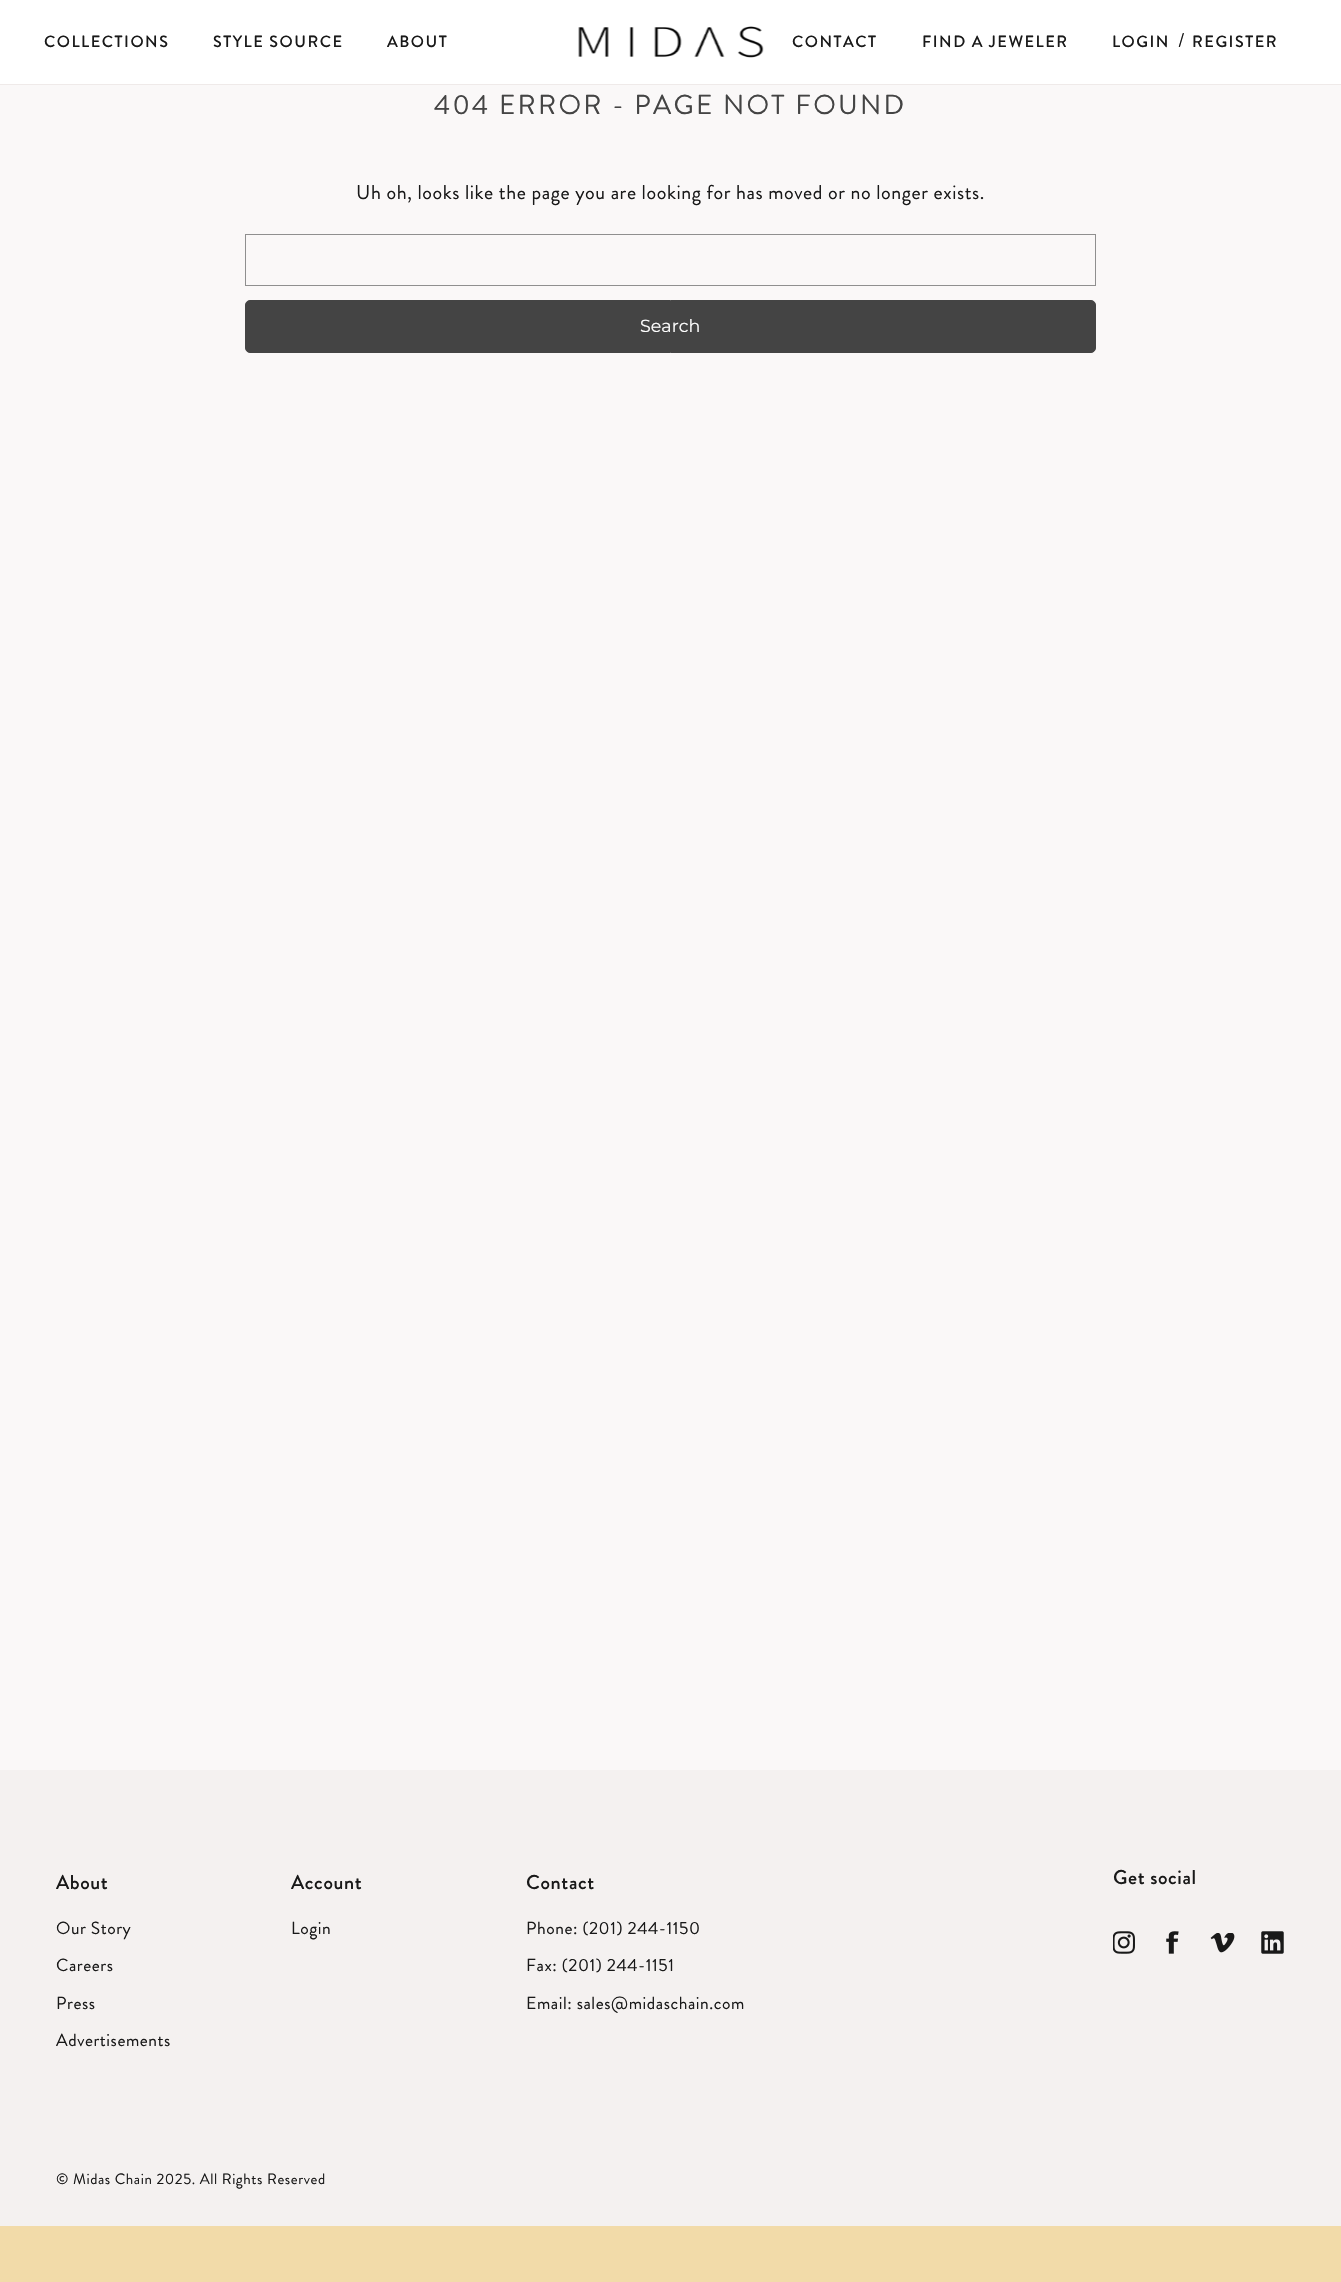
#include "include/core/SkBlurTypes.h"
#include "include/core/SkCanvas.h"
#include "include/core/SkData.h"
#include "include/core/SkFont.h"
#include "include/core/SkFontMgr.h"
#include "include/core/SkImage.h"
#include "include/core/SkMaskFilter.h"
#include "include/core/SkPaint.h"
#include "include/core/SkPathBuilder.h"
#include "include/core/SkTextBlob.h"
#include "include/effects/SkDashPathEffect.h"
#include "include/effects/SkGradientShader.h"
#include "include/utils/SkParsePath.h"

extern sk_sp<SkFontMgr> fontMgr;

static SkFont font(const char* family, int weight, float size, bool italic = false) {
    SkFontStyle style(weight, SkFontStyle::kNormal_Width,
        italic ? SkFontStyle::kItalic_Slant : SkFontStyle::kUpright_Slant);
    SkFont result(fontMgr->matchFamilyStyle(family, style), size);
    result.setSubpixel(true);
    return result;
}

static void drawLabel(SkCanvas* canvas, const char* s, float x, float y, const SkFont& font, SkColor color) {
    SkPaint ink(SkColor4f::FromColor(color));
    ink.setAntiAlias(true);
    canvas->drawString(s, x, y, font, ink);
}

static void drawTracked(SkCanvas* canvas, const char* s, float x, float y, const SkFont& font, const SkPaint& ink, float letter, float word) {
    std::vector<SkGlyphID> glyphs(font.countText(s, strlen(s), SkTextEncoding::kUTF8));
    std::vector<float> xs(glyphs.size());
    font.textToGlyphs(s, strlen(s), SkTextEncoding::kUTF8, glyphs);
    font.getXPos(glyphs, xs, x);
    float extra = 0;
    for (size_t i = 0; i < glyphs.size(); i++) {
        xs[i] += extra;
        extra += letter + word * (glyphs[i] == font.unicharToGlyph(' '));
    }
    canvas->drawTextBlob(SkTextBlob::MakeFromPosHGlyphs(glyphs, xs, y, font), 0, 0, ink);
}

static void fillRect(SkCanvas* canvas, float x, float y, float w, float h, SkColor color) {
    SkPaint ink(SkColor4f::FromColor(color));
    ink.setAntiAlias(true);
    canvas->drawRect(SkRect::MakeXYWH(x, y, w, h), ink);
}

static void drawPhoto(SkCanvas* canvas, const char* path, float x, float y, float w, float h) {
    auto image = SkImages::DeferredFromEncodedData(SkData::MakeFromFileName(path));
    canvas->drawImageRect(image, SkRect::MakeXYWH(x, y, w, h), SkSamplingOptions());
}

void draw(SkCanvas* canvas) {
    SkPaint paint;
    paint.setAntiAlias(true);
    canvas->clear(0xFFFFFFFF);
    fillRect(canvas, 0, 84, 1341, 1, 0xFFEFEAE9);
    SkFont font1 = font("Brandon Grotesque", 500, 16.25f);
    paint.setColor(0xFF191919);
    drawTracked(canvas, "COLLECTIONS", 44, 47, font1, paint, 1.5f, 0);
    drawTracked(canvas, "STYLE SOURCE", 213, 47, font1, paint, 1.5f, 0);
    drawTracked(canvas, "ABOUT", 387, 47, font1, paint, 1.5f, 0);
    drawPhoto(canvas, "assets/img1.png", 578, 26, 186, 32);
    drawTracked(canvas, "CONTACT", 792, 47, font1, paint, 1.5f, 0);
    drawTracked(canvas, "FIND A JEWELER", 922, 47, font1, paint, 1.5f, 0);
    drawTracked(canvas, "LOGIN", 1112, 47, font1, paint, 1.5f, 0);
    SkFont font2 = font("Brandon Grotesque", 400, 20);
    drawTracked(canvas, "/", 1178, 47, font2, paint, 0.58f, 0);
    drawTracked(canvas, "REGISTER", 1192, 47, font1, paint, 1.5f, 0);
    fillRect(canvas, 0, 85, 1341, 1685, 0xFFFAF8F8);
    SkFont font3 = font("Brandon Grotesque", 400, 27.5f);
    paint.setColor(0xFF444444);
    drawTracked(canvas, "404 ERROR - PAGE NOT FOUND", 434, 114, font3, paint, 2.3f, 0);
    paint.setColor(0xFF191919);
    drawTracked(canvas, "Uh oh, looks like the page you are looking for has moved or no longer exists.", 356, 199, font2, paint, 0.58f, 0);
    paint.setStroke(true);
    paint.setStrokeWidth(1);
    paint.setColor(0xFF8F8F8F);
    canvas->drawRect(SkRect::MakeXYWH(245.5f, 234.5f, 850, 51), paint);
    paint.setStroke(false);
    paint.setColor(0xFF444444);
    canvas->drawRoundRect(SkRect::MakeXYWH(245.5f, 300.5f, 850, 52), 4.5f, 4.5f, paint);
    paint.setStroke(true);
    canvas->drawRoundRect(SkRect::MakeXYWH(245.5f, 300.5f, 850, 52), 4.5f, 4.5f, paint);
    SkFont font4 = font("Montserrat", 400, 17.5f);
    drawLabel(canvas, "Search", 640, 332, font4, 0xFFFFFFFF);
    fillRect(canvas, 0, 1770, 1341, 456, 0xFFF4F1F0);
    SkFont font5 = font("Brandon Grotesque", 500, 20);
    paint.setStroke(false);
    paint.setColor(0xFF191919);
    drawTracked(canvas, "About", 56, 1889, font5, paint, 0.6f, 0);
    SkFont font6 = font("Brandon Grotesque", 400, 17.5f);
    drawTracked(canvas, "Our Story", 56, 1934, font6, paint, 0.55f, 0);
    drawTracked(canvas, "Careers", 56, 1971, font6, paint, 0.55f, 0);
    drawTracked(canvas, "Press", 56, 2009, font6, paint, 0.55f, 0);
    drawTracked(canvas, "Advertisements", 56, 2046, font6, paint, 0.55f, 0);
    drawTracked(canvas, "Account", 291, 1889, font5, paint, 0.6f, 0);
    drawTracked(canvas, "Login", 291, 1934, font6, paint, 0.55f, 0);
    drawTracked(canvas, "Contact", 526, 1889, font5, paint, 0.6f, 0);
    drawTracked(canvas, "Phone: (201) 244-1150", 526, 1934, font6, paint, 0.55f, 0);
    drawTracked(canvas, "Fax: (201) 244-1151", 526, 1971, font6, paint, 0.55f, 0);
    drawTracked(canvas, "Email: sales@midaschain.com", 526, 2009, font6, paint, 0.55f, 0);
    drawTracked(canvas, "Get social", 1113, 1884, font5, paint, 0.6f, 0);
    drawPhoto(canvas, "assets/img2.png", 1113, 1931, 22, 23);
    drawPhoto(canvas, "assets/img3.png", 1166, 1931, 13, 23);
    drawPhoto(canvas, "assets/img4.png", 1210, 1933, 25, 20);
    drawPhoto(canvas, "assets/img5.png", 1261, 1931, 23, 23);
    SkFont font7 = font("Brandon Grotesque", 400, 15);
    drawTracked(canvas, "© Midas Chain 2025. All Rights Reserved", 56, 2184, font7, paint, 0.58f, 0);
    fillRect(canvas, 0, 2226, 1341, 56, 0xFFF2DBA9);
}
